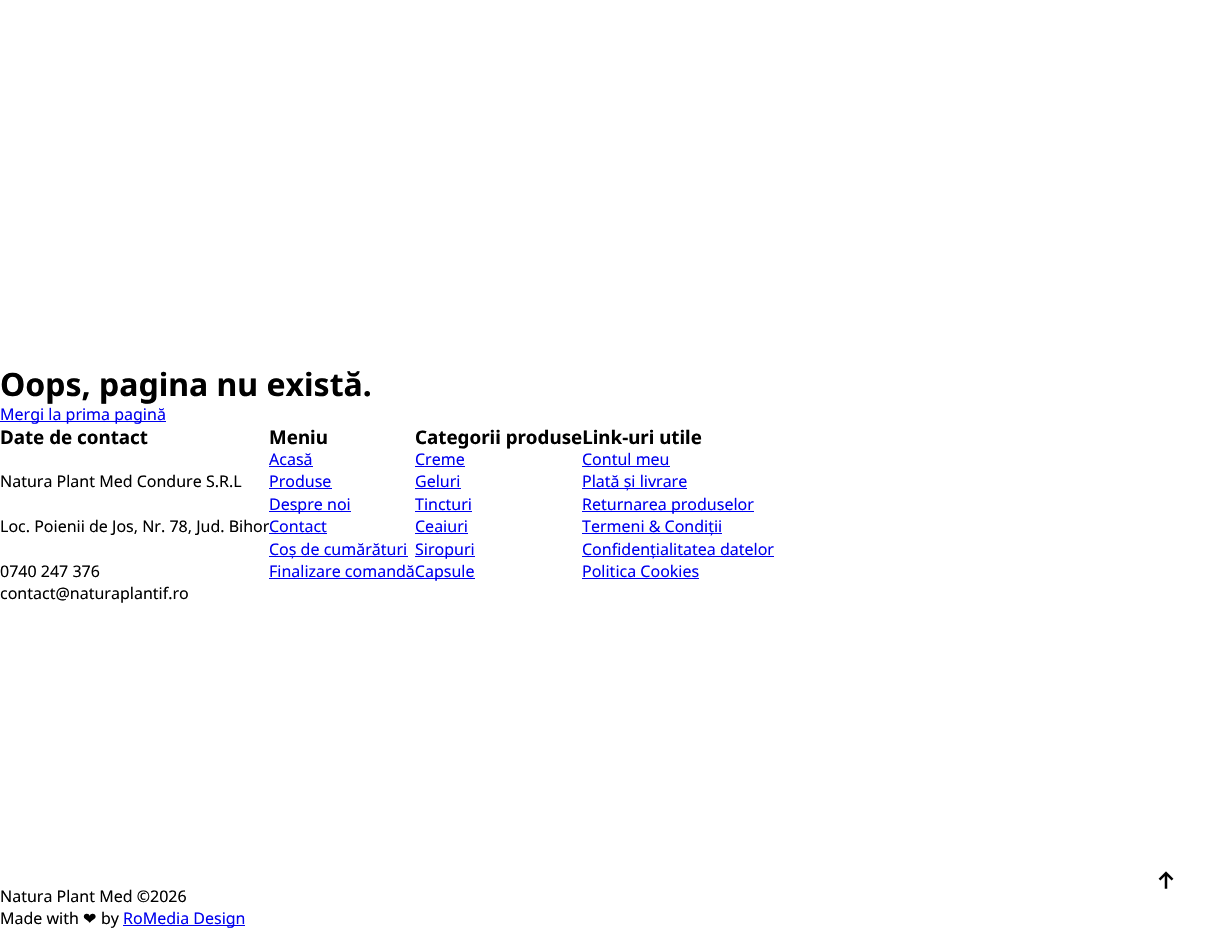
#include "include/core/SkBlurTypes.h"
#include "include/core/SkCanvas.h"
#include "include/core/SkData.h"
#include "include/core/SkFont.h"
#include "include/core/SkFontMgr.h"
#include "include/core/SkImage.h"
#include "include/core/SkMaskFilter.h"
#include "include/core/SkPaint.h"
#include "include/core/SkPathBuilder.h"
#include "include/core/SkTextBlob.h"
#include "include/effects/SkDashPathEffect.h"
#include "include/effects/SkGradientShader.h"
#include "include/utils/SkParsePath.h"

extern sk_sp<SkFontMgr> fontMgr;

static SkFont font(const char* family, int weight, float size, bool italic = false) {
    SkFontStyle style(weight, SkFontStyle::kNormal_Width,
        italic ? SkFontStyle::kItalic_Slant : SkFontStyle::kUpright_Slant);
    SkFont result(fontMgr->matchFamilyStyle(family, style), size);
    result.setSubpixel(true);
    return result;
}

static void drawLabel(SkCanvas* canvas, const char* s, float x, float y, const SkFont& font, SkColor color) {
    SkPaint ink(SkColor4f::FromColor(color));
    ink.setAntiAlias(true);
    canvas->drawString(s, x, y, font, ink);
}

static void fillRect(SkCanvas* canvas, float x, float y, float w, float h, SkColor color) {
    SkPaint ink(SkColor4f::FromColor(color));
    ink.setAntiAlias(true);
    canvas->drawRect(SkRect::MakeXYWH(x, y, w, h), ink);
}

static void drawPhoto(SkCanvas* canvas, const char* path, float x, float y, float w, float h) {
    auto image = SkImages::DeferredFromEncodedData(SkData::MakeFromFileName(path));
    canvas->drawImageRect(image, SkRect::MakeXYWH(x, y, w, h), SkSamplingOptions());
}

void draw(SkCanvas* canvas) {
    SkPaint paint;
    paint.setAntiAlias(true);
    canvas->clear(0xFFFFFFFF);
    SkFont font1 = font("Noto Sans", 700, 32);
    drawLabel(canvas, "Oops, pagina nu există.", 0, 396, font1, 0xFF000000);
    fillRect(canvas, 0, 421, 166, 1, 0xFF0000EE);
    SkFont font2 = font("Noto Sans", 400, 16);
    drawLabel(canvas, "Mergi la prima pagină", 0, 420, font2, 0xFF0000EE);
    SkFont font3 = font("Noto Sans", 700, 18.75f);
    drawLabel(canvas, "Date de contact", 0, 444, font3, 0xFF000000);
    drawLabel(canvas, "Natura Plant Med Condure S.R.L", 0, 487, font2, 0xFF000000);
    drawLabel(canvas, "Loc. Poienii de Jos, Nr. 78, Jud. Bihor", 0, 532, font2, 0xFF000000);
    drawLabel(canvas, "0740 247 376", 0, 577, font2, 0xFF000000);
    drawLabel(canvas, "contact@naturaplantif.ro", 0, 599, font2, 0xFF000000);
    drawLabel(canvas, "Meniu", 269, 444, font3, 0xFF000000);
    drawLabel(canvas, "Acasă", 269, 465, font2, 0xFF0000EE);
    fillRect(canvas, 269, 466, 44, 1, 0xFF0000EE);
    drawLabel(canvas, "Produse", 269, 487, font2, 0xFF0000EE);
    fillRect(canvas, 269, 488, 63, 1, 0xFF0000EE);
    fillRect(canvas, 269, 511, 82, 1, 0xFF0000EE);
    drawLabel(canvas, "Despre noi", 269, 510, font2, 0xFF0000EE);
    drawLabel(canvas, "Contact", 269, 532, font2, 0xFF0000EE);
    fillRect(canvas, 269, 533, 58, 1, 0xFF0000EE);
    fillRect(canvas, 269, 556, 139, 1, 0xFF0000EE);
    drawLabel(canvas, "Coș de cumărături", 269, 555, font2, 0xFF0000EE);
    fillRect(canvas, 269, 578, 206, 1, 0xFF0000EE);
    drawLabel(canvas, "Finalizare comandăCapsule", 269, 577, font2, 0xFF0000EE);
    drawLabel(canvas, "Categorii produseLink-uri utile", 415, 444, font3, 0xFF000000);
    drawLabel(canvas, "Creme", 415, 465, font2, 0xFF0000EE);
    fillRect(canvas, 415, 466, 50, 1, 0xFF0000EE);
    drawLabel(canvas, "Geluri", 415, 487, font2, 0xFF0000EE);
    fillRect(canvas, 415, 488, 46, 1, 0xFF0000EE);
    drawLabel(canvas, "Tincturi", 415, 510, font2, 0xFF0000EE);
    fillRect(canvas, 415, 511, 57, 1, 0xFF0000EE);
    drawLabel(canvas, "Ceaiuri", 415, 532, font2, 0xFF0000EE);
    fillRect(canvas, 415, 533, 53, 1, 0xFF0000EE);
    fillRect(canvas, 415, 556, 60, 1, 0xFF0000EE);
    drawLabel(canvas, "Siropuri", 415, 555, font2, 0xFF0000EE);
    drawLabel(canvas, "Contul meu", 582, 465, font2, 0xFF0000EE);
    fillRect(canvas, 582, 466, 88, 1, 0xFF0000EE);
    fillRect(canvas, 582, 488, 105, 1, 0xFF0000EE);
    drawLabel(canvas, "Plată și livrare", 582, 487, font2, 0xFF0000EE);
    fillRect(canvas, 582, 511, 172, 1, 0xFF0000EE);
    drawLabel(canvas, "Returnarea produselor", 582, 510, font2, 0xFF0000EE);
    fillRect(canvas, 582, 533, 140, 1, 0xFF0000EE);
    drawLabel(canvas, "Termeni & Condiții", 582, 532, font2, 0xFF0000EE);
    fillRect(canvas, 582, 556, 192, 1, 0xFF0000EE);
    drawLabel(canvas, "Confidențialitatea datelor", 582, 555, font2, 0xFF0000EE);
    drawLabel(canvas, "Politica Cookies", 582, 577, font2, 0xFF0000EE);
    fillRect(canvas, 582, 578, 117, 1, 0xFF0000EE);
    drawPhoto(canvas, "assets/img1.png", 1158, 871, 16, 18);
    drawLabel(canvas, "Natura Plant Med ©2026", 0, 902, font2, 0xFF000000);
    drawLabel(canvas, "Made with", 0, 924, font2, 0xFF000000);
    SkFont font4 = font("DejaVu Sans", 400, 16);
    drawLabel(canvas, "❤", 83, 924, font4, 0xFF000000);
    drawLabel(canvas, "by", 101, 924, font2, 0xFF000000);
    fillRect(canvas, 123, 925, 122, 1, 0xFF0000EE);
    drawLabel(canvas, "RoMedia Design", 123, 924, font2, 0xFF0000EE);
}
